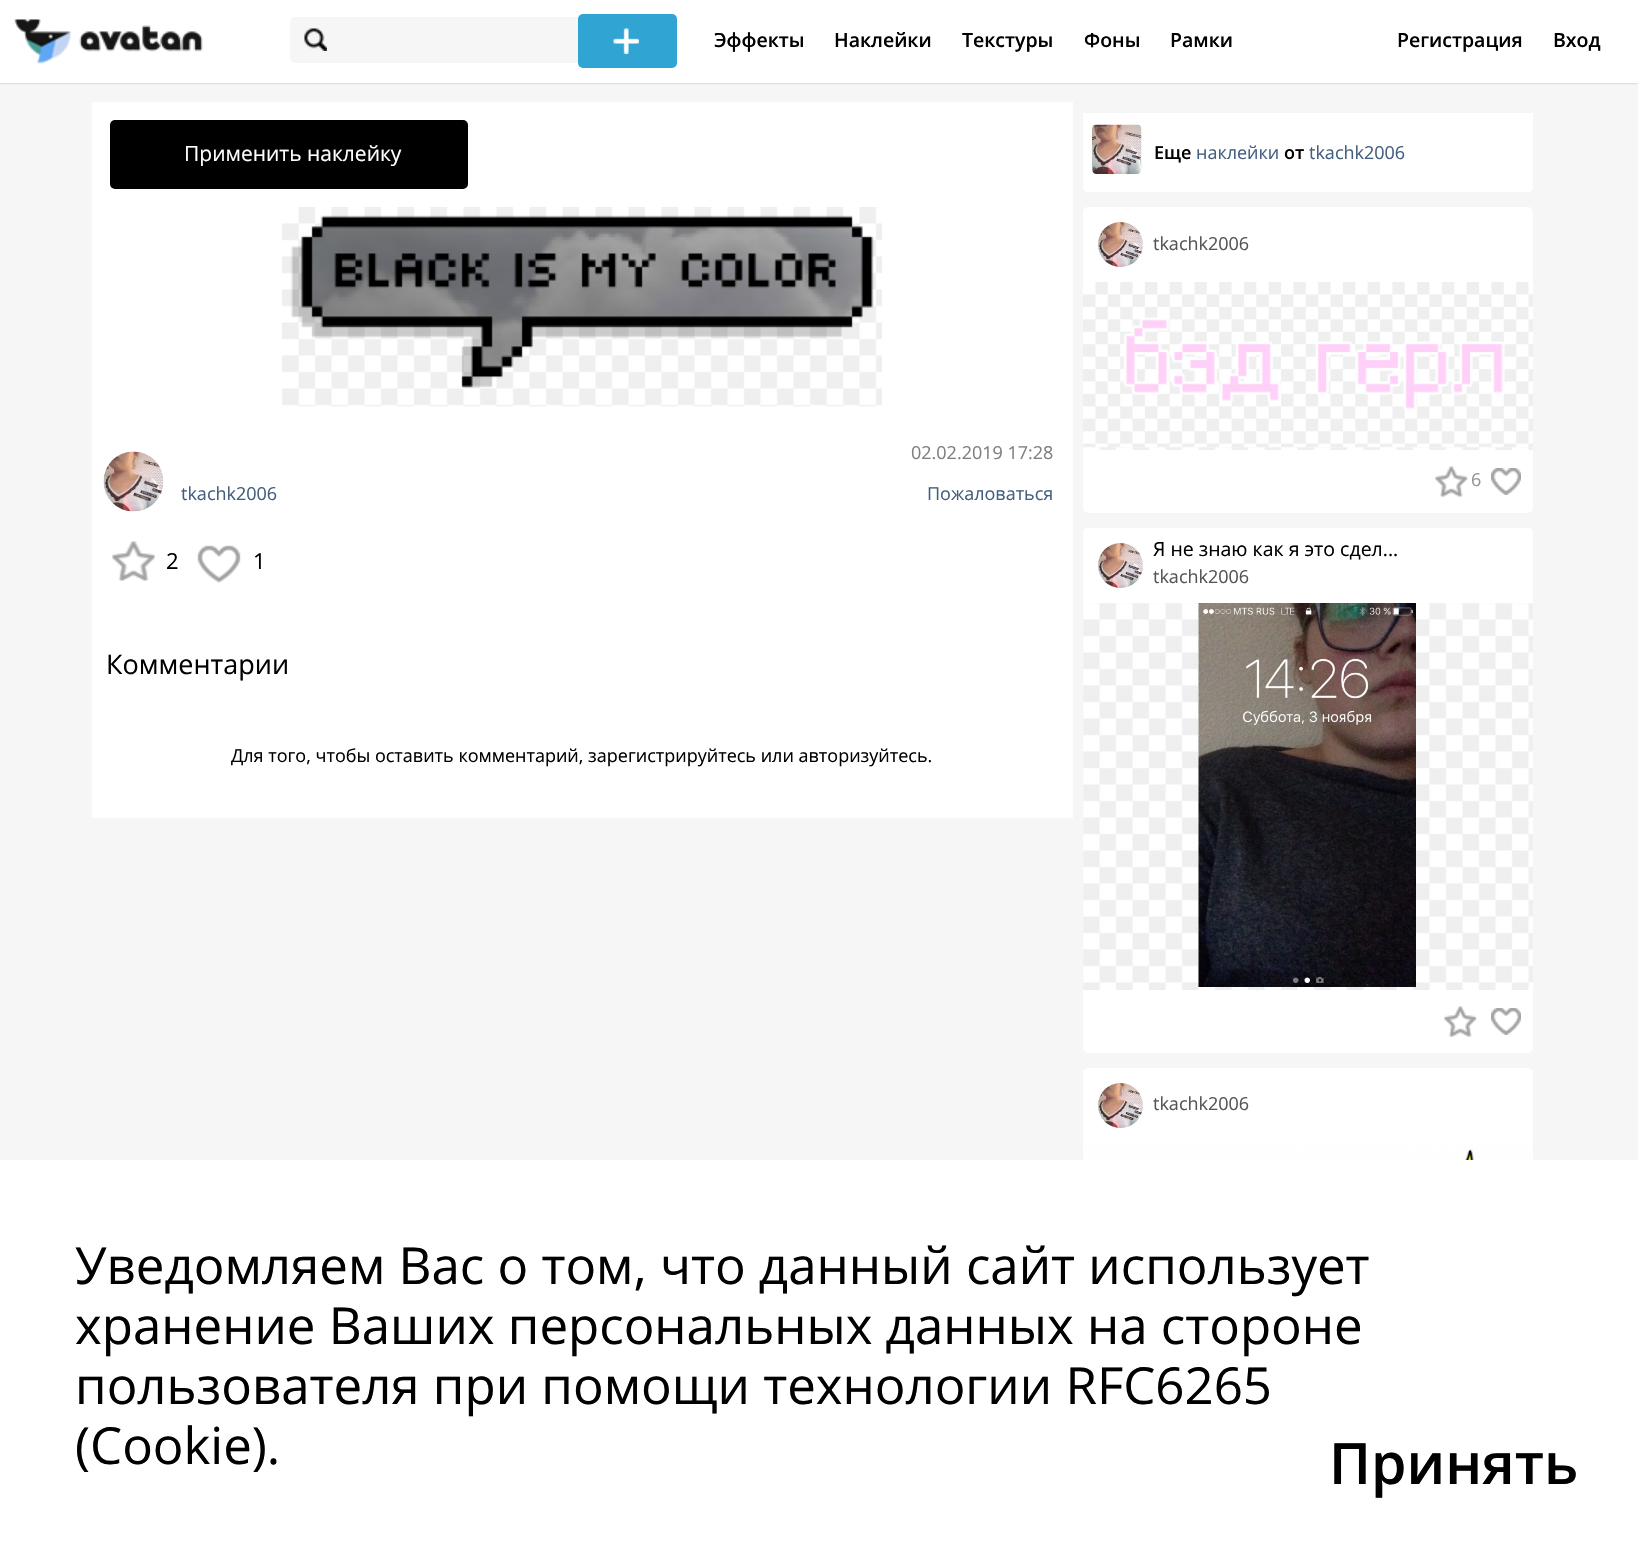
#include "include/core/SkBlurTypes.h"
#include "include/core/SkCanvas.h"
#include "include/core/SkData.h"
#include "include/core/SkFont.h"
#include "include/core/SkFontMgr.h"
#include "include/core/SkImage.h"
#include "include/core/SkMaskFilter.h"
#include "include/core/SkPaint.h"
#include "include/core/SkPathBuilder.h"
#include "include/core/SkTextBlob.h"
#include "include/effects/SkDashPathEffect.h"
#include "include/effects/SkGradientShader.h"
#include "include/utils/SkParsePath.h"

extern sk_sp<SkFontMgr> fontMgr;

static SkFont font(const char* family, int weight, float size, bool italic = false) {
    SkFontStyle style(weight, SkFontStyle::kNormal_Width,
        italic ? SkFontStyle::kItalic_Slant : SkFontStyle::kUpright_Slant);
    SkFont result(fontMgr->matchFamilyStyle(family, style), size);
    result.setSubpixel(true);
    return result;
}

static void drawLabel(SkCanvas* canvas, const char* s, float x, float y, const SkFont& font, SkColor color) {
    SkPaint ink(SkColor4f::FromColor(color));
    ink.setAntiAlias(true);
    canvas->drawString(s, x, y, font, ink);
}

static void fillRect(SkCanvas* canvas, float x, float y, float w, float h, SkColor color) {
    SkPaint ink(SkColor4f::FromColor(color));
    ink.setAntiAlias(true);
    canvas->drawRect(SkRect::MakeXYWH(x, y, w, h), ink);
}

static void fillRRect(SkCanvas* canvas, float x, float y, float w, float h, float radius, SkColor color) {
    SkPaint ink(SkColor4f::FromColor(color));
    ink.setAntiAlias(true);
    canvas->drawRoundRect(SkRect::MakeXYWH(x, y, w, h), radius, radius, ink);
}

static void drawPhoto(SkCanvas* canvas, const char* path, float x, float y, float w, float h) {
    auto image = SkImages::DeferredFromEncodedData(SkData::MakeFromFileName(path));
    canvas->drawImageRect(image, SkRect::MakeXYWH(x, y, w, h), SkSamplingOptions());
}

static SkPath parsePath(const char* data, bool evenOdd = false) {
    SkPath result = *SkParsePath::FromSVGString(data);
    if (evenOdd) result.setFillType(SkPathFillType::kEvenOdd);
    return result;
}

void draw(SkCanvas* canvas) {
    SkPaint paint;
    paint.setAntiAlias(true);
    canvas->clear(0xFFF6F6F6);
    paint.setColor(0x4D000000);
    paint.setMaskFilter(SkMaskFilter::MakeBlur(kNormal_SkBlurStyle, 1));
    canvas->drawRect(SkRect::MakeXYWH(0, 0, 1638, 83), paint);
    paint.setMaskFilter(nullptr);
    fillRect(canvas, 0, 0, 1638, 83, 0xFFFFFFFF);
    drawPhoto(canvas, "assets/img1.png", 14, 19, 189, 45);
    fillRRect(canvas, 290, 17, 348, 46, 5, 0xFFF6F6F6);
    drawPhoto(canvas, "assets/img2.png", 304, 28, 23, 23);
    fillRRect(canvas, 578, 14, 99, 54, 5, 0xFF30A5D4);
    drawPhoto(canvas, "assets/img3.png", 613, 28, 26, 26);
    SkFont font1 = font("Open Sans", 600, 19.5f);
    drawLabel(canvas, "Эффекты", 714, 47, font1, 0xFF000000);
    drawLabel(canvas, "Наклейки", 834, 47, font1, 0xFF000000);
    drawLabel(canvas, "Текстуры", 962, 47, font1, 0xFF000000);
    drawLabel(canvas, "Фоны", 1084, 47, font1, 0xFF000000);
    drawLabel(canvas, "Рамки", 1170, 47, font1, 0xFF000000);
    drawLabel(canvas, "Регистрация", 1397, 47, font1, 0xFF000000);
    drawLabel(canvas, "Вход", 1553, 47, font1, 0xFF000000);
    fillRect(canvas, 92, 102, 981, 716, 0xFFFFFFFF);
    fillRRect(canvas, 110, 120, 358, 69, 5, 0xFF000000);
    SkFont font2 = font("Open Sans", 400, 21);
    drawLabel(canvas, "Применить наклейку", 184, 161, font2, 0xFFFFFFFF);
    drawPhoto(canvas, "assets/img4.png", 282, 207, 600, 200);
    drawPhoto(canvas, "assets/img5.png", 282, 207, 592, 181);
    drawPhoto(canvas, "assets/img6.png", 103, 451, 61, 61);
    SkFont font3 = font("Open Sans", 400, 18);
    drawLabel(canvas, "tkachk2006", 181, 500, font3, 0xFF445E7F);
    drawLabel(canvas, "02.02.2019 17:28", 911, 459, font3, 0xFF808080);
    drawLabel(canvas, "Пожаловаться", 927, 500, font3, 0xFF445E7F);
    drawPhoto(canvas, "assets/img7.png", 112, 541, 43, 40);
    SkFont font4 = font("Open Sans", 400, 22);
    drawLabel(canvas, "2", 166, 569, font4, 0xFF000000);
    drawPhoto(canvas, "assets/img8.png", 197, 545, 44, 38);
    drawLabel(canvas, "1", 253, 569, font4, 0xFF000000);
    SkFont font5 = font("Open Sans", 400, 27);
    drawLabel(canvas, "Комментарии", 106, 674, font5, 0xFF000000);
    drawLabel(canvas, "Для того, чтобы оставить комментарий, зарегистрируйтесь или авторизуйтесь.", 231, 762, font3, 0xFF000000);
    paint.setColor(0xFFFFFFFF);
    canvas->drawPath(parsePath("M1083 113H1533V187C1533 190 1531 192 1528 192H1088C1085 192 1083 190 1083 187Z"), paint);
    drawPhoto(canvas, "assets/img9.png", 1092, 124, 50, 50);
    SkFont font6 = font("Open Sans", 600, 18);
    drawLabel(canvas, "Еще", 1154, 159, font6, 0xFF000000);
    drawLabel(canvas, "наклейки", 1196, 159, font3, 0xFF445E7F);
    drawLabel(canvas, "от", 1284, 159, font6, 0xFF000000);
    drawLabel(canvas, "tkachk2006", 1309, 159, font3, 0xFF445E7F);
    fillRRect(canvas, 1083, 207, 450, 306, 5, 0xFFFFFFFF);
    drawPhoto(canvas, "assets/img10.png", 1098, 222, 45, 45);
    drawLabel(canvas, "tkachk2006", 1153, 250, font3, 0xFF555555);
    drawPhoto(canvas, "assets/img11.png", 1083, 447, 450, 3);
    drawPhoto(canvas, "assets/img12.png", 1083, 282, 450, 165);
    drawPhoto(canvas, "assets/img13.png", 1435, 466, 33, 31);
    drawLabel(canvas, "6", 1471, 486, font3, 0xFF959595);
    drawPhoto(canvas, "assets/img14.png", 1491, 468, 30, 27);
    fillRRect(canvas, 1083, 528, 450, 525, 5, 0xFFFFFFFF);
    drawPhoto(canvas, "assets/img15.png", 1098, 543, 45, 45);
    SkFont font7 = font("Open Sans", 400, 19.5f);
    drawLabel(canvas, "Я не знаю как я это сдел...", 1153, 556, font7, 0xFF000000);
    drawLabel(canvas, "tkachk2006", 1153, 583, font3, 0xFF555555);
    drawPhoto(canvas, "assets/img16.png", 1083, 603, 450, 387);
    drawPhoto(canvas, "assets/img17.png", 1198, 603, 218, 384);
    drawPhoto(canvas, "assets/img13.png", 1444, 1006, 33, 31);
    drawPhoto(canvas, "assets/img14.png", 1491, 1008, 30, 27);
    fillRRect(canvas, 1083, 1068, 450, 414, 5, 0xFFFFFFFF);
    drawPhoto(canvas, "assets/img18.png", 1098, 1083, 45, 45);
    drawLabel(canvas, "tkachk2006", 1153, 1110, font3, 0xFF555555);
    drawPhoto(canvas, "assets/img19.png", 1083, 1143, 450, 17);
    fillRect(canvas, 0, 1160, 1638, 389, 0xFFFFFFFF);
    SkFont font8 = font("Open Sans", 400, 51);
    drawLabel(canvas, "Уведомляем Вас о том, что данный сайт использует", 75, 1284, font8, 0xFF000000);
    drawLabel(canvas, "хранение Ваших персональных данных на стороне", 75, 1344, font8, 0xFF000000);
    drawLabel(canvas, "пользователя при помощи технологии RFC6265", 75, 1404, font8, 0xFF000000);
    drawLabel(canvas, "(Cookie).", 75, 1464, font8, 0xFF000000);
    SkFont font9 = font("Open Sans", 600, 57);
    drawLabel(canvas, "Принять", 1329, 1484, font9, 0xFF000000);
}
